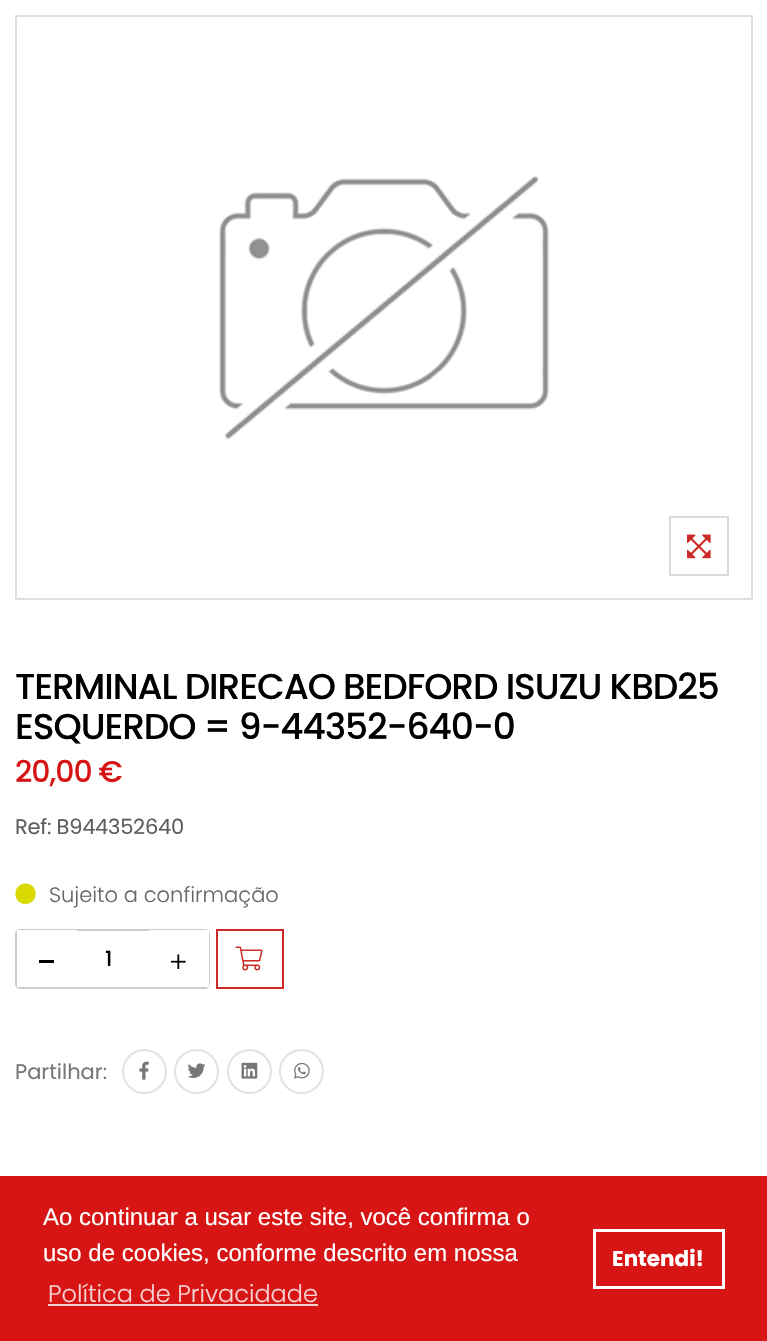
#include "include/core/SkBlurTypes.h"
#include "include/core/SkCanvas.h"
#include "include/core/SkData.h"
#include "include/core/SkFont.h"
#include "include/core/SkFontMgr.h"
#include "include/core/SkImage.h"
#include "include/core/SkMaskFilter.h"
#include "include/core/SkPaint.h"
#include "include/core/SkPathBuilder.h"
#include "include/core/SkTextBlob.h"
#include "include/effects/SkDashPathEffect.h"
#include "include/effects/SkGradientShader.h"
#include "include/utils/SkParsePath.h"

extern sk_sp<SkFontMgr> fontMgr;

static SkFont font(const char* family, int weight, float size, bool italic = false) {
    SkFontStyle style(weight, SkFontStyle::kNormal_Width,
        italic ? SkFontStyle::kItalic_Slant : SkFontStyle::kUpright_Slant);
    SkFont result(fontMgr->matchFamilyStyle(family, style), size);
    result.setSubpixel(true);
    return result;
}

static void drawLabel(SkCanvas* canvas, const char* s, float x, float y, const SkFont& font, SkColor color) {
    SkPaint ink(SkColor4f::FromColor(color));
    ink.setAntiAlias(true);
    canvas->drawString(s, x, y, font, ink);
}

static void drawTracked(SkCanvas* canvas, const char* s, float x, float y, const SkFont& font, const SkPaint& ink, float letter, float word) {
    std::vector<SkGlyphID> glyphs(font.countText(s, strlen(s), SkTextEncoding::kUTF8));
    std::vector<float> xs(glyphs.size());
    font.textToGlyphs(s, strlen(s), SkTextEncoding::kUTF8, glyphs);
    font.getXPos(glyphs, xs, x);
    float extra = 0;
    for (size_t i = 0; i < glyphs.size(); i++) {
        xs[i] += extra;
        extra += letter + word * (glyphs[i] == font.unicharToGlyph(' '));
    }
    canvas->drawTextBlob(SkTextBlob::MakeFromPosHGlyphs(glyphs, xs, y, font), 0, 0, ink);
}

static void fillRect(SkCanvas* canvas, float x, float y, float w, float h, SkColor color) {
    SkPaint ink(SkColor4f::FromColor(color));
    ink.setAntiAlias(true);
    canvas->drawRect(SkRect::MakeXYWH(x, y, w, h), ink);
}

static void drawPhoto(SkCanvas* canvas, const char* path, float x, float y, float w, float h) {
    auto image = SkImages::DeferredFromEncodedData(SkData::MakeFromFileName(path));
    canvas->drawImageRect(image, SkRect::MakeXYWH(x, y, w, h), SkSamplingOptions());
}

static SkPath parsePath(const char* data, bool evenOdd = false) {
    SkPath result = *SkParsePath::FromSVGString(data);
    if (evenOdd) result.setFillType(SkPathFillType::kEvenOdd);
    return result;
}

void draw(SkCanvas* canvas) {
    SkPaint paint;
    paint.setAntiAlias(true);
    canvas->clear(0xFFFFFFFF);
    paint.setStroke(true);
    paint.setStrokeWidth(2);
    paint.setColor(0xFFDFDFDF);
    canvas->drawRect(SkRect::MakeXYWH(16, 16, 736, 583), paint);
    drawPhoto(canvas, "assets/img1.png", 219, 175, 331, 265);
    paint.setColor(0xFFDADADA);
    canvas->drawRect(SkRect::MakeXYWH(670, 517, 58, 58), paint);
    drawPhoto(canvas, "assets/img2.png", 687, 534, 24, 25);
    SkFont font1 = font("Poppins", 500, 36);
    paint.setStroke(false);
    paint.setColor(0xFF000000);
    drawTracked(canvas, "TERMINAL DIRECAO BEDFORD ISUZU KBD25", 15, 699, font1, paint, -1.1f, 0);
    drawTracked(canvas, "ESQUERDO = 9-44352-640-0", 15, 739, font1, paint, -1.1f, 0);
    SkFont font2 = font("Poppins", 500, 30);
    paint.setColor(0xFFD71414);
    drawTracked(canvas, "20,00 €", 15, 782, font2, paint, -1, 0);
    SkFont font3 = font("Poppins", 400, 21);
    paint.setColor(0xFF5D5D5D);
    drawTracked(canvas, "Ref: B944352640", 15, 834, font3, paint, -0.25f, 0);
    paint.setColor(0xFFD9D900);
    canvas->drawPath(parsePath("M25.5 883.5C12 883.5 12 904 25.5 904C39 904 39 883.5 25.5 883.5Z"), paint);
    SkFont font4 = font("Poppins", 300, 21);
    drawLabel(canvas, "Sujeito a confirmação", 49, 902, font4, 0xFF666666);
    paint.setStroke(true);
    paint.setColor(0xFFCCCCCC);
    canvas->drawRoundRect(SkRect::MakeXYWH(16, 930, 193, 58), 4, 4, paint);
    fillRect(canvas, 17, 930, 60, 57, 0xFFFFFFFF);
    fillRect(canvas, 39, 960, 15, 3, 0xFF000000);
    SkFont font5 = font("Poppins", 500, 21);
    paint.setStroke(false);
    paint.setColor(0xFF000000);
    drawTracked(canvas, "1", 105, 966, font5, paint, 1, 0);
    fillRect(canvas, 149, 930, 60, 57, 0xFFFFFFFF);
    drawPhoto(canvas, "assets/img3.png", 171, 954, 15, 15);
    paint.setStroke(true);
    paint.setColor(0xFFCD2A27);
    canvas->drawRect(SkRect::MakeXYWH(217, 930, 66, 58), paint);
    drawPhoto(canvas, "assets/img4.png", 235, 946, 28, 25);
    drawLabel(canvas, "Partilhar:", 15, 1079, font3, 0xFF777777);
    paint.setColor(0xFFE1E2E6);
    canvas->drawCircle(144.5f, 1071.5f, 21.5f, paint);
    drawPhoto(canvas, "assets/img5.png", 139, 1061, 10, 19);
    canvas->drawCircle(196.5f, 1071.5f, 21.5f, paint);
    drawPhoto(canvas, "assets/img6.png", 187, 1063, 19, 15);
    canvas->drawCircle(249.5f, 1071.5f, 21.5f, paint);
    drawPhoto(canvas, "assets/img7.png", 241, 1062, 17, 17);
    canvas->drawCircle(301.5f, 1071.5f, 21.5f, paint);
    drawPhoto(canvas, "assets/img8.png", 294, 1062, 16, 17);
    fillRect(canvas, 0, 1176, 767, 165, 0xFFD71515);
    SkFont font6 = font("Liberation Sans", 400, 24);
    drawLabel(canvas, "Ao continuar a usar este site, você confirma o", 43, 1225, font6, 0xFFFFFFFF);
    drawLabel(canvas, "uso de cookies, conforme descrito em nossa", 43, 1261, font6, 0xFFFFFFFF);
    SkFont font7 = font("Poppins", 300, 24);
    drawLabel(canvas, "Política de Privacidade", 48, 1302, font7, 0xFFF7D0D0);
    fillRect(canvas, 48, 1304, 270, 2, 0xFFF7D0D0);
    paint.setStrokeWidth(3);
    paint.setColor(0xFFFFFFFF);
    canvas->drawRect(SkRect::MakeXYWH(594.5f, 1230.5f, 129, 57), paint);
    SkFont font8 = font("Poppins", 700, 21.5f);
    drawLabel(canvas, "Entendi!", 612, 1266, font8, 0xFFFFFFFF);
}
